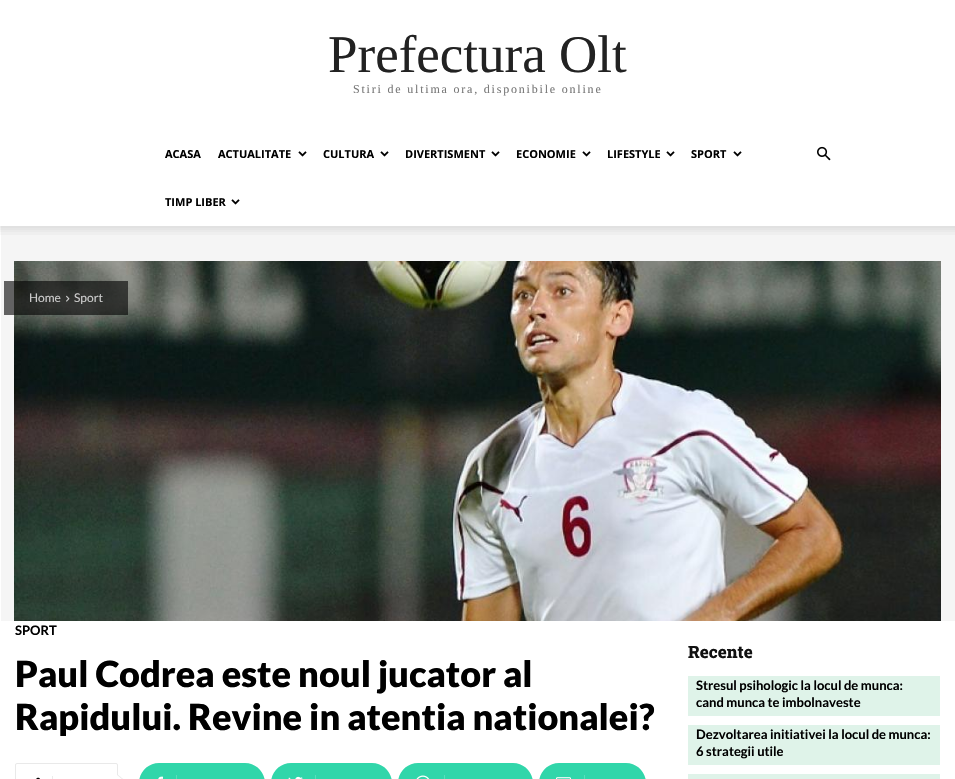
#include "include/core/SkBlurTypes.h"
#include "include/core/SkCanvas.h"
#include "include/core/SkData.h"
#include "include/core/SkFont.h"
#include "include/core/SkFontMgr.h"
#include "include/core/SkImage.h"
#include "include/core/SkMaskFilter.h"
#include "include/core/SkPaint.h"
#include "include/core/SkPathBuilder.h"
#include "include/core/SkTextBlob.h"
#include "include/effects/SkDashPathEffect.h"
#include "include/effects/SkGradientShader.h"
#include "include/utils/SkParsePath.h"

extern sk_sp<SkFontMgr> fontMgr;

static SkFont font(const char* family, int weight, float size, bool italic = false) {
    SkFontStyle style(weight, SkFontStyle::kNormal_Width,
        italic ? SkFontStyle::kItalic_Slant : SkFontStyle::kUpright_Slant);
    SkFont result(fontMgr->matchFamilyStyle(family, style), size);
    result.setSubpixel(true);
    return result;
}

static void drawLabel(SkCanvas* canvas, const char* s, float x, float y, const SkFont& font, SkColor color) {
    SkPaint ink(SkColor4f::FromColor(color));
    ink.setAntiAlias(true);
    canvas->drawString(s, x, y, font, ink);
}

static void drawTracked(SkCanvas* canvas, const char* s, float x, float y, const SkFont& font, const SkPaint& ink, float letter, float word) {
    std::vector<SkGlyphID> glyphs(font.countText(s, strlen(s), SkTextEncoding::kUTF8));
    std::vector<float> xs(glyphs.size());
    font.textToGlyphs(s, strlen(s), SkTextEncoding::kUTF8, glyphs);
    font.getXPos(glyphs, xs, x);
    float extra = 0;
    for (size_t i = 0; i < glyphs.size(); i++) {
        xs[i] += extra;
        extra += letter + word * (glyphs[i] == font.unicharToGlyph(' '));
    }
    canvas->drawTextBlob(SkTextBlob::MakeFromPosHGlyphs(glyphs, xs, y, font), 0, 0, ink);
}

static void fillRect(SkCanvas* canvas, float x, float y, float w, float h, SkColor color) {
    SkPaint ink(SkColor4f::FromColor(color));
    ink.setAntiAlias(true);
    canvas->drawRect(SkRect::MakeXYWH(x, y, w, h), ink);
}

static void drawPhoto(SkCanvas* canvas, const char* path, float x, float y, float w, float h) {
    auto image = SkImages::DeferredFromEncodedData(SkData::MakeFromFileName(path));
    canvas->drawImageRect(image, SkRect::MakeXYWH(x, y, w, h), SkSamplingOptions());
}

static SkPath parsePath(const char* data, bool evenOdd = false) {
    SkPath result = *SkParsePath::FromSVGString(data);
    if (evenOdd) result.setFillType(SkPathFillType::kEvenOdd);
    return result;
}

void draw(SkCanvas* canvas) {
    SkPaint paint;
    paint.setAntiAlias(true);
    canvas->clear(0xFFFFFFFF);
    SkFont font1 = font("Liberation Serif", 400, 53);
    drawLabel(canvas, "Prefectura Olt", 328, 72, font1, 0xFF222222);
    SkFont font2 = font("Liberation Serif", 400, 12);
    paint.setColor(0xFF777777);
    drawTracked(canvas, "Stiri de ultima ora, disponibile online", 353, 93, font2, paint, 1.8f, 0);
    SkFont font3 = font("Open Sans", 700, 11);
    drawLabel(canvas, "ACASA", 165, 158, font3, 0xFF000000);
    drawLabel(canvas, "ACTUALITATE", 218, 158, font3, 0xFF000000);
    drawPhoto(canvas, "assets/img1.png", 298, 151, 9, 6);
    drawLabel(canvas, "CULTURA", 323, 158, font3, 0xFF000000);
    drawPhoto(canvas, "assets/img1.png", 380, 151, 9, 6);
    drawLabel(canvas, "DIVERTISMENT", 405, 158, font3, 0xFF000000);
    drawPhoto(canvas, "assets/img1.png", 491, 151, 9, 6);
    drawLabel(canvas, "ECONOMIE", 516, 158, font3, 0xFF000000);
    drawPhoto(canvas, "assets/img1.png", 582, 151, 9, 6);
    drawLabel(canvas, "LIFESTYLE", 607, 158, font3, 0xFF000000);
    drawPhoto(canvas, "assets/img1.png", 666, 151, 9, 6);
    drawLabel(canvas, "SPORT", 691, 158, font3, 0xFF000000);
    drawPhoto(canvas, "assets/img1.png", 733, 151, 9, 6);
    drawLabel(canvas, "TIMP LIBER", 165, 206, font3, 0xFF000000);
    drawPhoto(canvas, "assets/img1.png", 231, 199, 9, 6);
    drawPhoto(canvas, "assets/img2.png", 817, 146, 14, 15);
    fillRect(canvas, 1, 226, 954, 395, 0xFFF5F5F5);
    drawPhoto(canvas, "assets/img3.png", 0, 226, 955, 9);
    drawPhoto(canvas, "assets/img4.png", 14, 261, 927, 360);
    fillRect(canvas, 4, 281, 124, 34, 0x99000000);
    SkFont font4 = font("Lato", 400, 12);
    drawLabel(canvas, "Home", 29, 302, font4, 0xFFCCCCCC);
    drawPhoto(canvas, "assets/img5.png", 66, 295, 4, 7);
    drawLabel(canvas, "Sport", 74, 302, font4, 0xFFCCCCCC);
    SkFont font5 = font("Lato", 700, 13);
    drawLabel(canvas, "SPORT", 15, 635, font5, 0xFF000000);
    SkFont font6 = font("Lato", 900, 36);
    drawLabel(canvas, "Paul Codrea este noul jucator al", 15, 687, font6, 0xFF000000);
    drawLabel(canvas, "Rapidului. Revine in atentia nationalei?", 15, 730, font6, 0xFF000000);
    paint.setStroke(true);
    paint.setStrokeWidth(1);
    paint.setColor(0xFFE9E9E9);
    canvas->drawRoundRect(SkRect::MakeXYWH(15.5f, 763.5f, 102, 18), 1.5f, 1.5f, paint);
    paint.setStroke(false);
    canvas->drawPath(parsePath("M117 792V774L128 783Z"), paint);
    drawPhoto(canvas, "assets/img6.png", 36, 777, 4, 2);
    fillRect(canvas, 52, 776, 1, 3, 0xFFEBEBEB);
    paint.setColor(0xFFFFFFFF);
    canvas->drawPath(parsePath("M117 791V775L127 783Z"), paint);
    paint.setColor(0xFF31D6AA);
    canvas->drawPath(parsePath("M176 763H245C256 763 265 772 265 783V779C265 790 256 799 245 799H176Z"), paint);
    canvas->drawPath(parsePath("M159 763H180V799H159C148 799 139 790 139 779V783C139 772 148 763 159 763Z"), paint);
    drawPhoto(canvas, "assets/img7.png", 158, 776, 5, 3);
    fillRect(canvas, 176, 775, 1, 4, 0xFF5ADEBB);
    canvas->drawPath(parsePath("M315 763H372C383 763 392 772 392 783V779C392 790 383 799 372 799H315Z"), paint);
    canvas->drawPath(parsePath("M291 763H319V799H291C280 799 271 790 271 779V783C271 772 280 763 291 763Z"), paint);
    drawPhoto(canvas, "assets/img8.png", 288, 776, 15, 3);
    fillRect(canvas, 315, 775, 1, 4, 0xFF5ADEBB);
    canvas->drawPath(parsePath("M444 763H513C524 763 533 772 533 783V779C533 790 524 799 513 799H444Z"), paint);
    canvas->drawPath(parsePath("M418 763H447V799H418C407 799 398 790 398 779V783C398 772 407 763 418 763Z"), paint);
    drawPhoto(canvas, "assets/img9.png", 416, 775, 14, 4);
    fillRect(canvas, 444, 775, 1, 4, 0xFF5ADEBB);
    canvas->drawPath(parsePath("M584 763H626C637 763 646 772 646 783V779C646 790 637 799 626 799H584Z"), paint);
    canvas->drawPath(parsePath("M559 763H588V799H559C548 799 539 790 539 779V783C539 772 548 763 559 763Z"), paint);
    drawPhoto(canvas, "assets/img10.png", 556, 777, 15, 2);
    fillRect(canvas, 584, 775, 1, 4, 0xFF5ADEBB);
    SkFont font7 = font("Roboto Slab", 800, 17);
    drawLabel(canvas, "Recente", 688, 658, font7, 0xFF111111);
    fillRect(canvas, 688, 676, 252, 40, 0xFFDFF3E9);
    drawLabel(canvas, "Stresul psihologic la locul de munca:", 696, 690, font5, 0xFF000000);
    drawLabel(canvas, "cand munca te imbolnaveste", 696, 707, font5, 0xFF000000);
    fillRect(canvas, 688, 725, 252, 40, 0xFFDFF3E9);
    drawLabel(canvas, "Dezvoltarea initiativei la locul de munca:", 696, 739, font5, 0xFF000000);
    drawLabel(canvas, "6 strategii utile", 696, 756, font5, 0xFF000000);
    fillRect(canvas, 688, 774, 252, 5, 0xFFDFF3E9);
}
